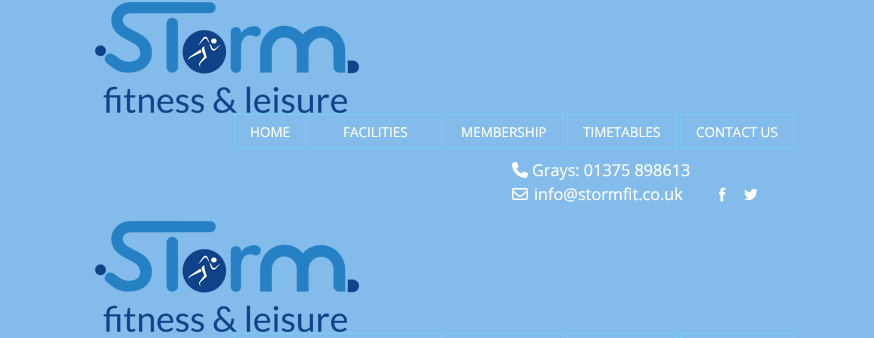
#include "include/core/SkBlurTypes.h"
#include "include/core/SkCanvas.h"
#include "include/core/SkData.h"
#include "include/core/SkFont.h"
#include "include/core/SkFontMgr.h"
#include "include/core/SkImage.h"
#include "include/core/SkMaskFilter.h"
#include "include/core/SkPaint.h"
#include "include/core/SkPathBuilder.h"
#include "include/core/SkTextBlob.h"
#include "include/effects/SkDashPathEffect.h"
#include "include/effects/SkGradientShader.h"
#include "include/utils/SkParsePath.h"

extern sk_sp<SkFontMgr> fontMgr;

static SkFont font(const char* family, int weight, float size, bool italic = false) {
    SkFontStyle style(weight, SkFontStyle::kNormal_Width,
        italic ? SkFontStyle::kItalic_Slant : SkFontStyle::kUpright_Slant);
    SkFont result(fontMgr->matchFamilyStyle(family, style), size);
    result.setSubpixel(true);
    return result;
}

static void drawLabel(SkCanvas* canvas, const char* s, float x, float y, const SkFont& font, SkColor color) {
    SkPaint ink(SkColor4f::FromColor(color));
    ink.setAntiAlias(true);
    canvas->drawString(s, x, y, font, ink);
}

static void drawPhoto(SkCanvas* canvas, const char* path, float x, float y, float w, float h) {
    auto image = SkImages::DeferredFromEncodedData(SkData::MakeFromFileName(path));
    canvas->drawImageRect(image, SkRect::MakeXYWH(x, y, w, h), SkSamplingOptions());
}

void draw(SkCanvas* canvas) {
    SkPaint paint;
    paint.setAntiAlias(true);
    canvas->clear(0xFF83BBEA);
    drawPhoto(canvas, "assets/img1.png", 95, 2, 264, 111);
    paint.setStroke(true);
    paint.setStrokeWidth(1);
    paint.setColor(0xFF72D0F4);
    canvas->drawRect(SkRect::MakeXYWH(234.5f, 114.5f, 71, 34), paint);
    SkFont font1 = font("Open Sans", 400, 13.5f);
    drawLabel(canvas, "HOME", 250, 137, font1, 0xFFFFFFFF);
    canvas->drawRect(SkRect::MakeXYWH(309.5f, 114.5f, 132, 34), paint);
    drawLabel(canvas, "FACILITIES", 343, 137, font1, 0xFFFFFFFF);
    canvas->drawRect(SkRect::MakeXYWH(445.5f, 114.5f, 118, 34), paint);
    drawLabel(canvas, "MEMBERSHIP", 461, 137, font1, 0xFFFFFFFF);
    canvas->drawRect(SkRect::MakeXYWH(567.5f, 114.5f, 109, 34), paint);
    drawLabel(canvas, "TIMETABLES", 583, 137, font1, 0xFFFFFFFF);
    canvas->drawRect(SkRect::MakeXYWH(680.5f, 114.5f, 113, 34), paint);
    drawLabel(canvas, "CONTACT US", 696, 137, font1, 0xFFFFFFFF);
    drawPhoto(canvas, "assets/img2.png", 512, 162, 16, 16);
    SkFont font2 = font("Open Sans", 400, 16.25f);
    drawLabel(canvas, "Grays: 01375 898613", 532, 176, font2, 0xFFFFFFFF);
    drawPhoto(canvas, "assets/img3.png", 512, 188, 16, 12);
    drawLabel(canvas, "info@stormfit.co.uk", 534, 200, font2, 0xFFFFFFFF);
    drawPhoto(canvas, "assets/img4.png", 719, 187, 7, 15);
    drawPhoto(canvas, "assets/img5.png", 744, 188, 14, 13);
    drawPhoto(canvas, "assets/img1.png", 95, 221, 264, 111);
    canvas->drawRect(SkRect::MakeXYWH(234.5f, 333.5f, 71, 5), paint);
    canvas->drawRect(SkRect::MakeXYWH(309.5f, 333.5f, 132, 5), paint);
    canvas->drawRect(SkRect::MakeXYWH(445.5f, 333.5f, 118, 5), paint);
    canvas->drawRect(SkRect::MakeXYWH(567.5f, 333.5f, 109, 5), paint);
    canvas->drawRect(SkRect::MakeXYWH(680.5f, 333.5f, 113, 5), paint);
}
